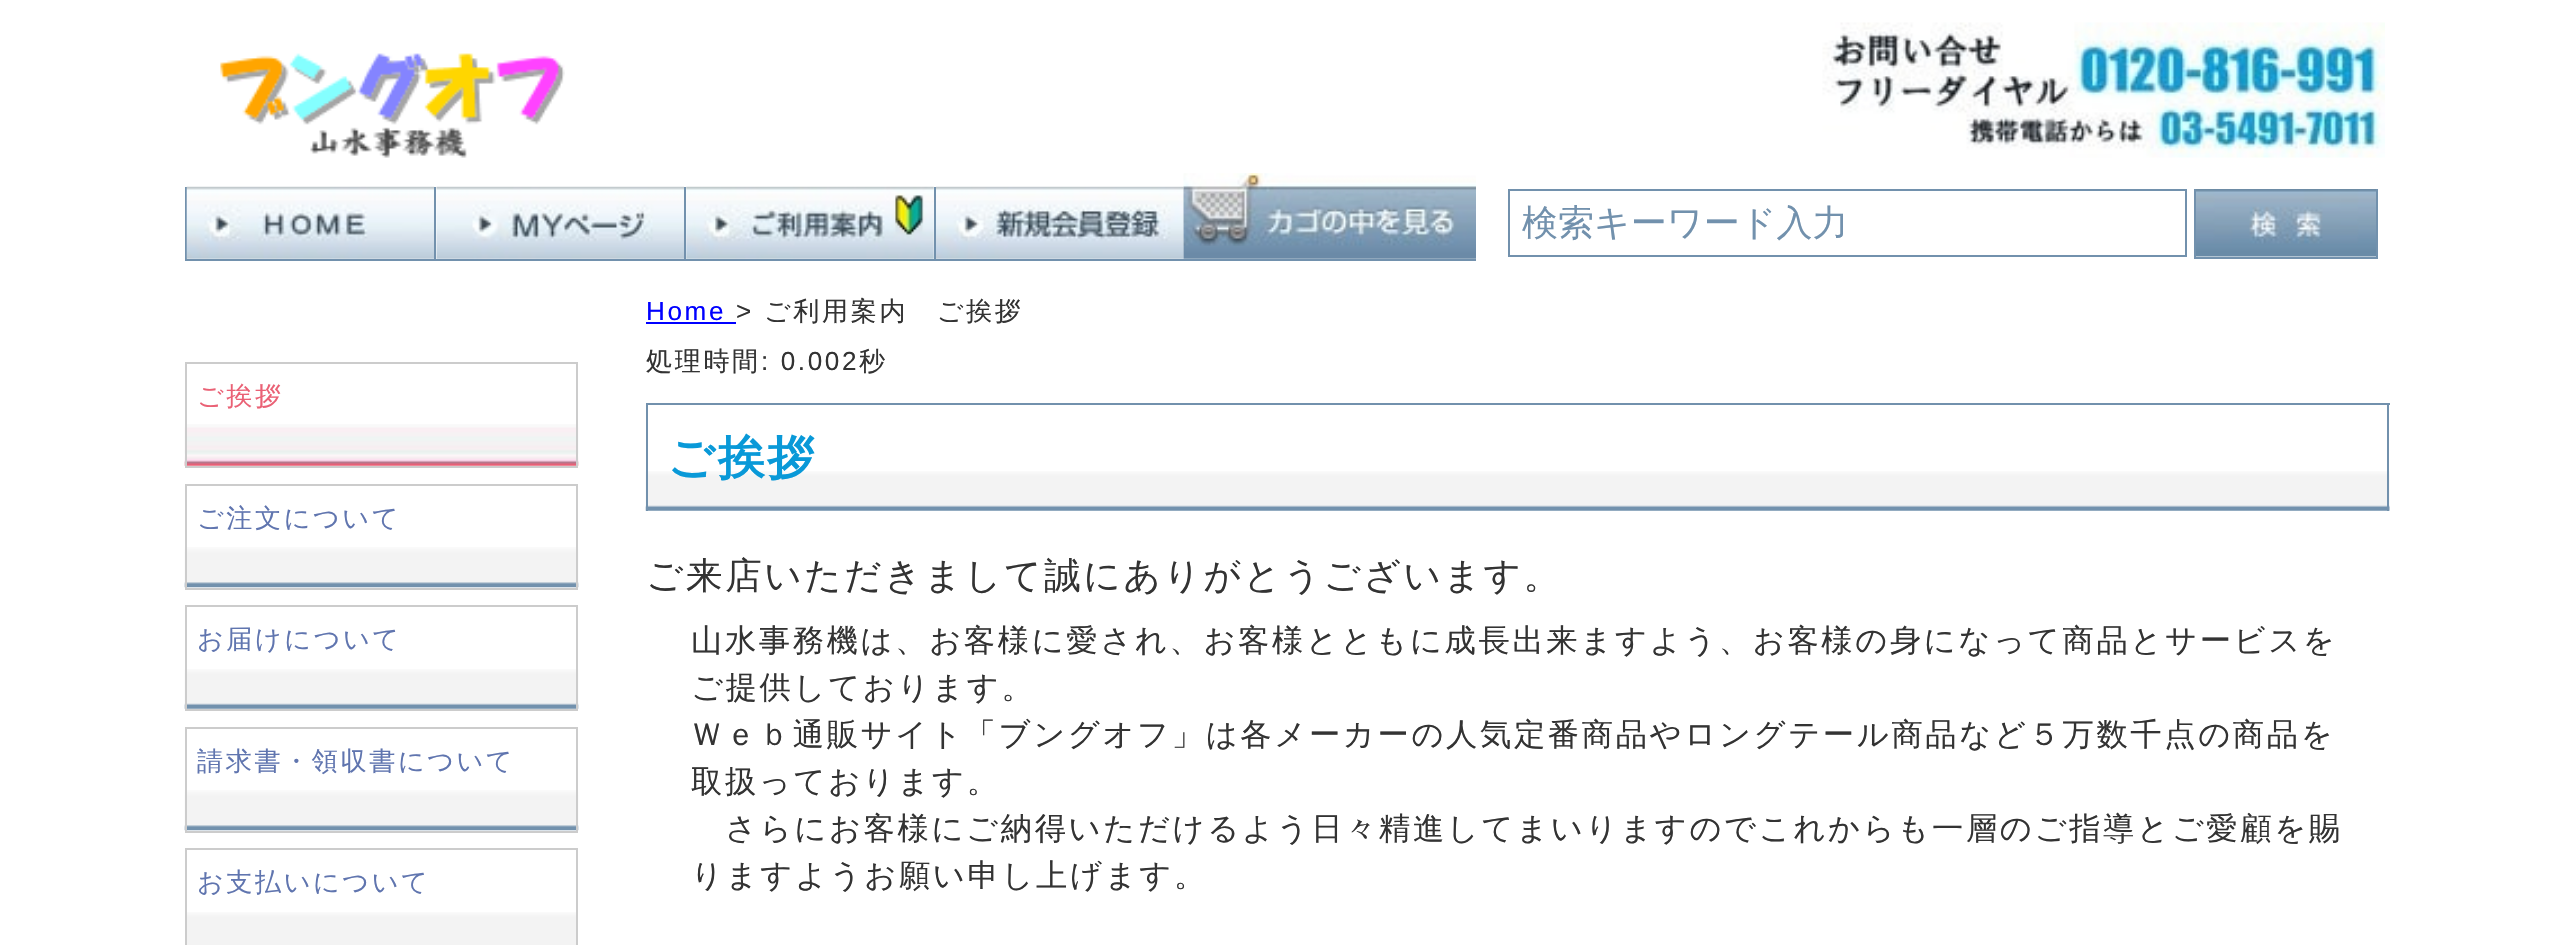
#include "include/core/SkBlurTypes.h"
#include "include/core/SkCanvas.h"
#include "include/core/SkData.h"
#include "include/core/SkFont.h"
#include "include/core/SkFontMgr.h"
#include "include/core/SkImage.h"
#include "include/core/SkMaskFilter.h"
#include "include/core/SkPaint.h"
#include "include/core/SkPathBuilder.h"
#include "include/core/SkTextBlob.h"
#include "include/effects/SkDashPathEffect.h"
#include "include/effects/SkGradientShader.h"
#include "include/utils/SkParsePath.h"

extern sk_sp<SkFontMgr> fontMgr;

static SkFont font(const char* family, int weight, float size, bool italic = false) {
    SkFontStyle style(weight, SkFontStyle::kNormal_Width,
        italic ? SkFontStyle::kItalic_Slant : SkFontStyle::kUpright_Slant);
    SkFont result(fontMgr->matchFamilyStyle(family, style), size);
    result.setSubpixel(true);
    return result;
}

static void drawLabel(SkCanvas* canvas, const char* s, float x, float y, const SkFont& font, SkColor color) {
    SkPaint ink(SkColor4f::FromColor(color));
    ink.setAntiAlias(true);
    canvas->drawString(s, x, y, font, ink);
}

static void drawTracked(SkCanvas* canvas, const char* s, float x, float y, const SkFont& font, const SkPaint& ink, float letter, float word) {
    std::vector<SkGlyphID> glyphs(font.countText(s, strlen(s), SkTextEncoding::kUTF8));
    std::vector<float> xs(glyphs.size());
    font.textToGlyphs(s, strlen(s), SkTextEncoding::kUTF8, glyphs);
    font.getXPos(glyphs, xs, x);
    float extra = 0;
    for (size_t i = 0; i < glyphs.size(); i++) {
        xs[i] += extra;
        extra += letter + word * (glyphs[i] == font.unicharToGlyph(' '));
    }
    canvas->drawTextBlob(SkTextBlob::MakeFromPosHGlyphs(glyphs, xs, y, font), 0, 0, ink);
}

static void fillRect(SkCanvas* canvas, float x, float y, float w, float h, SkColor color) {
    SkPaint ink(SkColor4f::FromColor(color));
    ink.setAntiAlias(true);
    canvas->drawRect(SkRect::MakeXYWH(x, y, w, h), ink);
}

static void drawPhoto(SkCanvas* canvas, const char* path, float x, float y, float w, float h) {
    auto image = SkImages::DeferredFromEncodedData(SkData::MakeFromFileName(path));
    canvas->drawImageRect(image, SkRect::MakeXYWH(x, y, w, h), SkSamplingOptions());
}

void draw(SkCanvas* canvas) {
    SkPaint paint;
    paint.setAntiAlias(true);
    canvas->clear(0xFFFFFFFF);
    drawPhoto(canvas, "assets/img1.png", 220, 53, 345, 105);
    drawPhoto(canvas, "assets/img2.png", 1822, 22, 563, 136);
    drawPhoto(canvas, "assets/img7.png", 936, 186, 248, 73);
    drawPhoto(canvas, "assets/img3.png", 1183, 173, 293, 86);
    fillRect(canvas, 185, 259, 1291, 2, 0xFF7291AD);
    fillRect(canvas, 185, 187, 2, 74, 0xFF7291AD);
    drawPhoto(canvas, "assets/img4.png", 186, 186, 249, 73);
    fillRect(canvas, 434, 187, 2, 74, 0xFF7291AD);
    drawPhoto(canvas, "assets/img5.png", 436, 186, 248, 73);
    fillRect(canvas, 684, 187, 2, 74, 0xFF7291AD);
    drawPhoto(canvas, "assets/img6.png", 686, 186, 248, 73);
    fillRect(canvas, 934, 187, 2, 74, 0xFF7291AD);
    paint.setStroke(true);
    paint.setStrokeWidth(2);
    paint.setColor(0xFF7291AD);
    canvas->drawRect(SkRect::MakeXYWH(1509, 190, 677, 66), paint);
    SkFont font1 = font("WenQuanYi Zen Hei", 500, 36);
    drawLabel(canvas, "検索キーワード入力", 1522, 235, font1, 0xFF7291AD);
    fillRect(canvas, 2376, 189, 2, 70, 0xFF7291AD);
    fillRect(canvas, 2194, 257, 184, 2, 0xFF7291AD);
    fillRect(canvas, 2194, 189, 2, 70, 0xFF7291AD);
    drawPhoto(canvas, "assets/img8.png", 2196, 189, 180, 68);
    drawPhoto(canvas, "assets/img9.png", 184, 424, 395, 42);
    paint.setColor(0xFFCCCCCC);
    canvas->drawRect(SkRect::MakeXYWH(186, 363, 391, 104), paint);
    SkFont font2 = font("WenQuanYi Zen Hei", 500, 26.1f);
    paint.setStroke(false);
    paint.setColor(0xFFEA6175);
    drawTracked(canvas, "ご挨拶", 197, 405, font2, paint, 2.6f, 0);
    drawPhoto(canvas, "assets/img10.png", 184, 547, 395, 41);
    paint.setStroke(true);
    paint.setColor(0xFFCCCCCC);
    canvas->drawRect(SkRect::MakeXYWH(186, 485, 391, 104), paint);
    paint.setStroke(false);
    paint.setColor(0xFF6075AF);
    drawTracked(canvas, "ご注文について", 197, 527, font2, paint, 2.6f, 0);
    drawPhoto(canvas, "assets/img11.png", 184, 669, 395, 40);
    paint.setStroke(true);
    paint.setColor(0xFFCCCCCC);
    canvas->drawRect(SkRect::MakeXYWH(186, 606, 391, 104), paint);
    paint.setStroke(false);
    paint.setColor(0xFF6075AF);
    drawTracked(canvas, "お届けについて", 197, 648, font2, paint, 2.6f, 0);
    drawPhoto(canvas, "assets/img10.png", 184, 790, 395, 41);
    paint.setStroke(true);
    paint.setColor(0xFFCCCCCC);
    canvas->drawRect(SkRect::MakeXYWH(186, 728, 391, 104), paint);
    paint.setStroke(false);
    paint.setColor(0xFF6075AF);
    drawTracked(canvas, "請求書・領収書について", 197, 770, font2, paint, 2.6f, 0);
    drawPhoto(canvas, "assets/img12.png", 187, 912, 389, 33);
    paint.setStroke(true);
    paint.setColor(0xFFCCCCCC);
    canvas->drawRect(SkRect::MakeXYWH(186, 849, 391, 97), paint);
    paint.setStroke(false);
    paint.setColor(0xFF6075AF);
    drawTracked(canvas, "お支払いについて", 197, 891, font2, paint, 2.6f, 0);
    SkFont font3 = font("Liberation Sans", 400, 26.1f);
    paint.setColor(0xFF0000FF);
    drawTracked(canvas, "Home", 646, 320, font3, paint, 2.6f, 0);
    fillRect(canvas, 646, 322, 90, 2, 0xFF0000FF);
    paint.setColor(0xFF333333);
    drawTracked(canvas, ">", 736, 320, font3, paint, 2.6f, 0);
    drawTracked(canvas, "ご利用案内　ご挨拶", 764, 320, font2, paint, 2.6f, 0);
    drawTracked(canvas, "処理時間", 646, 370, font2, paint, 2.6f, 0);
    drawTracked(canvas, ": 0.002", 761, 370, font3, paint, 2.6f, 0);
    drawTracked(canvas, "秒", 859, 370, font2, paint, 2.6f, 0);
    drawPhoto(canvas, "assets/img13.png", 645, 471, 1745, 40);
    fillRect(canvas, 646, 403, 1744, 2, 0xFF7291AD);
    fillRect(canvas, 2387, 403, 2, 108, 0xFF7291AD);
    fillRect(canvas, 646, 403, 2, 108, 0xFF7291AD);
    SkFont font4 = font("WenQuanYi Zen Hei", 700, 47);
    paint.setColor(0xFF0999D8);
    drawTracked(canvas, "ご挨拶", 667, 474, font4, paint, 2.6f, 0);
    SkFont font5 = font("WenQuanYi Zen Hei", 500, 36.55f);
    paint.setColor(0xFF333333);
    drawTracked(canvas, "ご来店いただきまして誠にありがとうございます。", 646, 588, font5, paint, 2.6f, 0);
    SkFont font6 = font("WenQuanYi Zen Hei", 500, 31.32f);
    drawTracked(canvas, "山水事務機は、お客様に愛され、お客様とともに成長出来ますよう、お客様の身になって商品とサービスを", 691, 651, font6, paint, 2.6f, 0);
    drawTracked(canvas, "ご提供しております。", 691, 698, font6, paint, 2.6f, 0);
    drawTracked(canvas, "Ｗｅｂ通販サイト「ブングオフ」は各メーカーの人気定番商品やロングテール商品など５万数千点の商品を", 691, 745, font6, paint, 2.6f, 0);
    drawTracked(canvas, "取扱っております。", 691, 792, font6, paint, 2.6f, 0);
    drawTracked(canvas, "さらにお客様にご納得いただけるよう日々精進してまいりますのでこれからも一層のご指導とご愛顧を賜", 725, 839, font6, paint, 2.6f, 0);
    drawTracked(canvas, "りますようお願い申し上げます。", 691, 886, font6, paint, 2.6f, 0);
}
